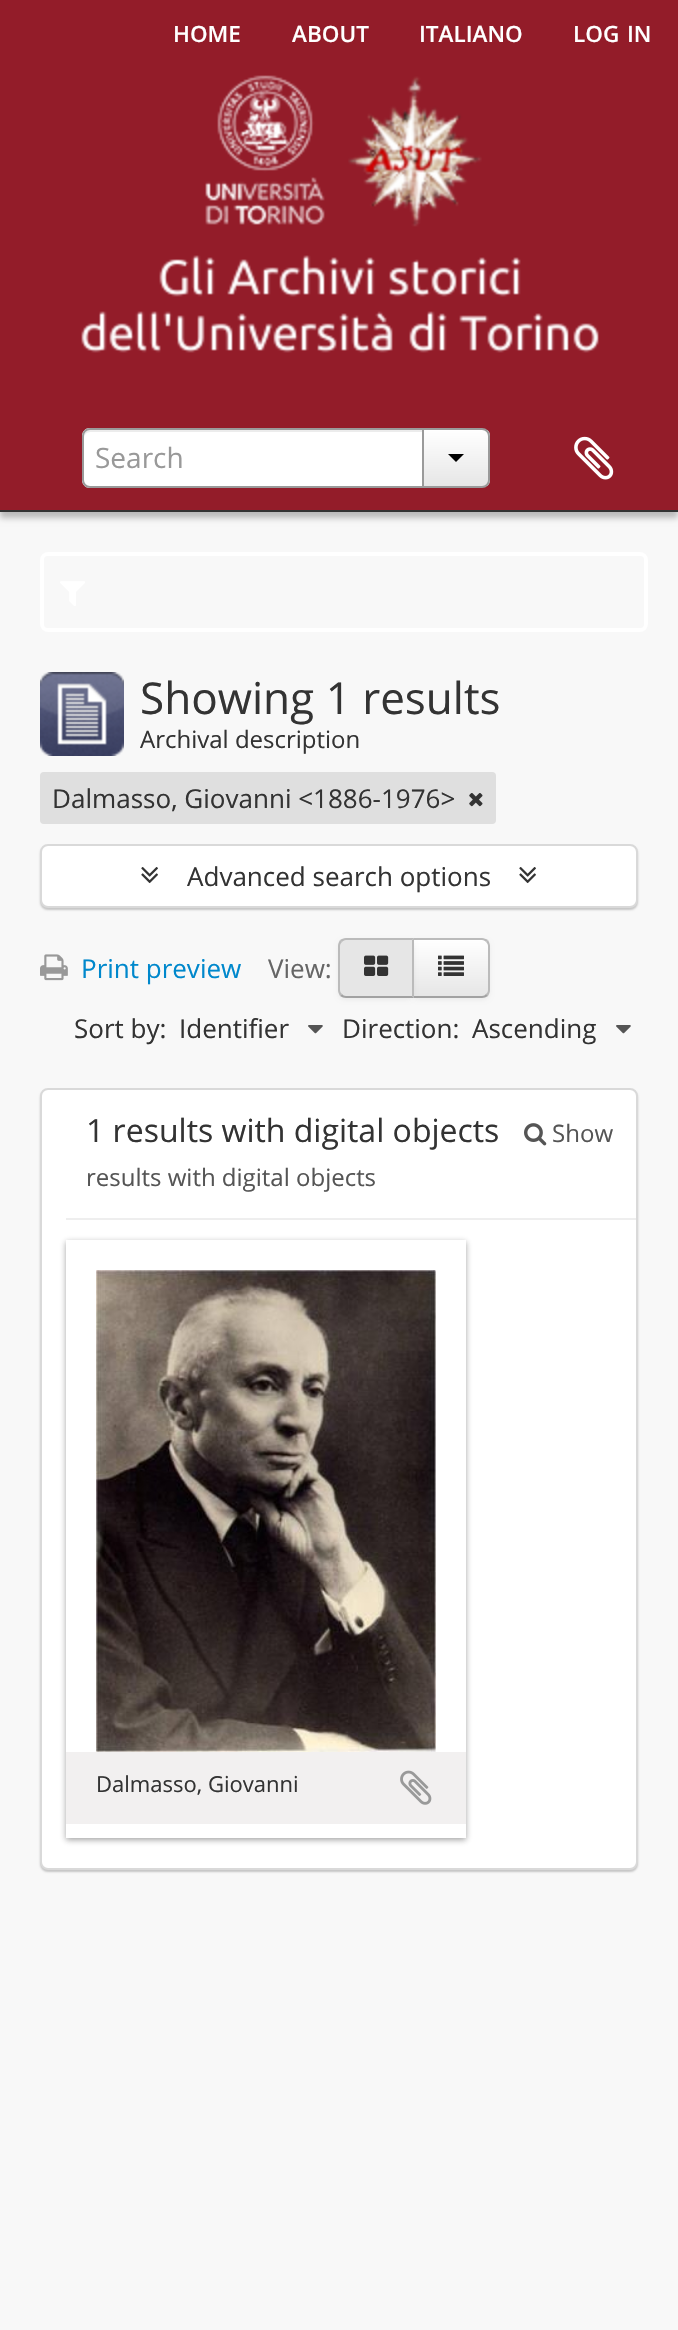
#include "include/core/SkBlurTypes.h"
#include "include/core/SkCanvas.h"
#include "include/core/SkData.h"
#include "include/core/SkFont.h"
#include "include/core/SkFontMgr.h"
#include "include/core/SkImage.h"
#include "include/core/SkMaskFilter.h"
#include "include/core/SkPaint.h"
#include "include/core/SkPathBuilder.h"
#include "include/core/SkTextBlob.h"
#include "include/effects/SkDashPathEffect.h"
#include "include/effects/SkGradientShader.h"
#include "include/utils/SkParsePath.h"

extern sk_sp<SkFontMgr> fontMgr;

static SkFont font(const char* family, int weight, float size, bool italic = false) {
    SkFontStyle style(weight, SkFontStyle::kNormal_Width,
        italic ? SkFontStyle::kItalic_Slant : SkFontStyle::kUpright_Slant);
    SkFont result(fontMgr->matchFamilyStyle(family, style), size);
    result.setSubpixel(true);
    return result;
}

static void drawLabel(SkCanvas* canvas, const char* s, float x, float y, const SkFont& font, SkColor color) {
    SkPaint ink(SkColor4f::FromColor(color));
    ink.setAntiAlias(true);
    canvas->drawString(s, x, y, font, ink);
}

static void fillRect(SkCanvas* canvas, float x, float y, float w, float h, SkColor color) {
    SkPaint ink(SkColor4f::FromColor(color));
    ink.setAntiAlias(true);
    canvas->drawRect(SkRect::MakeXYWH(x, y, w, h), ink);
}

static void fillRRect(SkCanvas* canvas, float x, float y, float w, float h, float radius, SkColor color) {
    SkPaint ink(SkColor4f::FromColor(color));
    ink.setAntiAlias(true);
    canvas->drawRoundRect(SkRect::MakeXYWH(x, y, w, h), radius, radius, ink);
}

static void drawPhoto(SkCanvas* canvas, const char* path, float x, float y, float w, float h) {
    auto image = SkImages::DeferredFromEncodedData(SkData::MakeFromFileName(path));
    canvas->drawImageRect(image, SkRect::MakeXYWH(x, y, w, h), SkSamplingOptions());
}

static SkPath parsePath(const char* data, bool evenOdd = false) {
    SkPath result = *SkParsePath::FromSVGString(data);
    if (evenOdd) result.setFillType(SkPathFillType::kEvenOdd);
    return result;
}

void draw(SkCanvas* canvas) {
    SkPaint paint;
    paint.setAntiAlias(true);
    canvas->clear(0xFFF8F8F8);
    paint.setColor(0x40000000);
    paint.setMaskFilter(SkMaskFilter::MakeBlur(kNormal_SkBlurStyle, 3));
    canvas->drawRect(SkRect::MakeXYWH(0, 6, 678, 512), paint);
    paint.setMaskFilter(nullptr);
    fillRect(canvas, 0, 0, 678, 510, 0xFF931C29);
    fillRect(canvas, 0, 510, 678, 2, 0xFF333333);
    SkFont font1 = font("Open Sans", 600, 22.5f);
    drawLabel(canvas, "HOME", 173, 42, font1, 0xFFFFFFFF);
    drawLabel(canvas, "ABOUT", 292, 42, font1, 0xFFFFFFFF);
    drawLabel(canvas, "ITALIANO", 419, 42, font1, 0xFFFFFFFF);
    drawLabel(canvas, "LOG", 573, 42, font1, 0xFFFFFFFF);
    drawLabel(canvas, "IN", 627, 42, font1, 0xFFFFFFFF);
    drawPhoto(canvas, "assets/img1.png", 205, 75, 120, 150);
    drawPhoto(canvas, "assets/img2.png", 348, 76, 134, 151);
    drawPhoto(canvas, "assets/img3.png", 81, 255, 518, 98);
    paint.setColor(0xFFFFFFFF);
    canvas->drawPath(parsePath("M90 428H424V488H90C85.5 488 82 484.5 82 480V436C82 431.5 85.5 428 90 428Z"), paint);
    paint.setColor(0xFFECECEC);
    canvas->drawPath(parsePath("M90 432H422V430H90C85 430 84 434 84 438C84 435 87 432 90 432Z"), paint);
    paint.setStroke(true);
    paint.setStrokeWidth(2);
    paint.setColor(0xFF9A9A9A);
    canvas->drawPath(parsePath("M90 429H423V487H90C86 487 83 484 83 480V436C83 432 86 429 90 429Z"), paint);
    SkFont font2 = font("Open Sans", 400, 28);
    drawLabel(canvas, "Search", 95, 468, font2, 0xFF999999);
    canvas->save();
    canvas->clipPath(parsePath("M422 428H482C486.5 428 490 431.5 490 436V480C490 484.5 486.5 488 482 488H422Z"), true);
    paint.setStroke(false);
    {
        const SkColor colors[] = {0xFFFFFFFF, 0xFFE6E6E6};
        const float stops[] = {0, 1};
        const SkPoint ends[] = {{456, 430}, {456, 486}};
        paint.setShader(SkGradientShader::MakeLinear(ends, colors, stops, 2, SkTileMode::kClamp));
        paint.setAlpha(255);
    }
    canvas->drawRect(SkRect::MakeXYWH(424, 430, 66, 56), paint);
    canvas->restore();
    paint.setStroke(true);
    paint.setShader(nullptr);
    paint.setColor(0xFF9A9A9A);
    canvas->drawPath(parsePath("M423 429H482C486 429 489 432 489 436V480C489 484 486 487 482 487H423Z"), paint);
    paint.setStroke(false);
    paint.setColor(0xFF000000);
    canvas->drawPath(parsePath("M448 454H464L456 462Z"), paint);
    drawPhoto(canvas, "assets/img4.png", 574, 436, 40, 44);
    paint.setStroke(true);
    paint.setStrokeWidth(4);
    paint.setColor(0xFFFFFFFF);
    canvas->drawRoundRect(SkRect::MakeXYWH(42, 554, 604, 76), 6, 6, paint);
    drawPhoto(canvas, "assets/img5.png", 60, 581, 25, 25);
    drawPhoto(canvas, "assets/img6.png", 40, 672, 84, 84);
    SkFont font3 = font("Open Sans", 400, 44);
    drawLabel(canvas, "Showing 1 results", 140, 714, font3, 0xFF333333);
    SkFont font4 = font("Open Sans", 400, 24);
    drawLabel(canvas, "Archival description", 140, 748, font4, 0xFF333333);
    fillRRect(canvas, 40, 772, 456, 52, 4, 0xFFDFDFDF);
    SkFont font5 = font("Open Sans", 400, 26);
    drawLabel(canvas, "Dalmasso, Giovanni <1886-1976>", 52, 808, font5, 0xFF333333);
    drawPhoto(canvas, "assets/img7.png", 469, 793, 14, 14);
    paint.setStroke(false);
    paint.setColor(0x33000000);
    paint.setMaskFilter(SkMaskFilter::MakeBlur(kNormal_SkBlurStyle, 1));
    canvas->drawRoundRect(SkRect::MakeXYWH(40, 846, 598, 64), 8, 8, paint);
    paint.setMaskFilter(nullptr);
    paint.setColor(0xFFFFFFFF);
    canvas->drawRoundRect(SkRect::MakeXYWH(41, 845, 596, 62), 7, 7, paint);
    paint.setStroke(true);
    paint.setStrokeWidth(2);
    paint.setColor(0xFFD9D9D9);
    canvas->drawRoundRect(SkRect::MakeXYWH(41, 845, 596, 62), 7, 7, paint);
    drawPhoto(canvas, "assets/img8.png", 141, 867, 17, 17);
    drawLabel(canvas, "Advanced search options", 187, 886, font5, 0xFF333333);
    drawPhoto(canvas, "assets/img8.png", 519, 867, 17, 17);
    drawPhoto(canvas, "assets/img9.png", 40, 954, 28, 27);
    drawLabel(canvas, "Print preview", 81, 978, font5, 0xFF0088CC);
    drawLabel(canvas, "View:", 268, 978, font5, 0xFF666666);
    paint.setStroke(false);
    paint.setColor(0x0D000000);
    paint.setMaskFilter(SkMaskFilter::MakeBlur(kNormal_SkBlurStyle, 2));
    canvas->drawRoundRect(SkRect::MakeXYWH(412, 940, 78, 60), 8, 8, paint);
    paint.setMaskFilter(nullptr);
    canvas->save();
    canvas->clipPath(parsePath("M412 938H482C486.5 938 490 941.5 490 946V990C490 994.5 486.5 998 482 998H412Z"), true);
    {
        const SkColor colors[] = {0xFFFFFFFF, 0xFFE6E6E6};
        const float stops[] = {0, 1};
        const SkPoint ends[] = {{451, 940}, {451, 996}};
        paint.setShader(SkGradientShader::MakeLinear(ends, colors, stops, 2, SkTileMode::kClamp));
        paint.setAlpha(255);
    }
    canvas->drawRect(SkRect::MakeXYWH(414, 940, 76, 56), paint);
    canvas->restore();
    paint.setShader(nullptr);
    paint.setColor(0xFFBBBBBB);
    canvas->drawPath(parsePath("M412 938L414 940H482C484 940 485 941 486 942L488 940C486 939 484 938 482 938Z"), paint);
    canvas->drawPath(parsePath("M490 990V946C490 944 489 942 488 940L486 942C487 943 488 944 488 946V990C488 992 487 993 486 994L488 996C489 994 490 992 490 990Z"), paint);
    paint.setColor(0xFFA2A2A2);
    canvas->drawPath(parsePath("M482 998C484 998 486 997 488 996L486 994C485 995 484 996 482 996H414L412 998Z"), paint);
    paint.setColor(0x0D000000);
    paint.setMaskFilter(SkMaskFilter::MakeBlur(kNormal_SkBlurStyle, 2));
    canvas->drawRoundRect(SkRect::MakeXYWH(338, 940, 76, 60), 8, 8, paint);
    paint.setMaskFilter(nullptr);
    paint.setColor(0xFFE6E6E6);
    canvas->drawPath(parsePath("M346 938H414V998H346C341.5 998 338 994.5 338 990V946C338 941.5 341.5 938 346 938Z"), paint);
    paint.setColor(0xFFBBBBBB);
    canvas->drawPath(parsePath("M346 938C344 938 342 939 340 940L342 942C343 941 344 940 346 940H412L414 938Z"), paint);
    canvas->drawPath(parsePath("M414 938L412 940V996L414 998Z"), paint);
    paint.setColor(0xFFA2A2A2);
    canvas->drawPath(parsePath("M414 998L412 996H346C344 996 343 995 342 994L340 996C342 997 344 998 346 998Z"), paint);
    paint.setColor(0xFFBBBBBB);
    canvas->drawPath(parsePath("M338 946V990C338 992 339 994 340 996L342 994C341 993 340 992 340 990V946C340 944 341 943 342 942L340 940C339 942 338 944 338 946Z"), paint);
    drawPhoto(canvas, "assets/img10.png", 364, 955, 25, 21);
    drawPhoto(canvas, "assets/img11.png", 438, 955, 26, 21);
    drawLabel(canvas, "Sort by:", 74, 1038, font5, 0xFF333333);
    drawLabel(canvas, "Identifier", 179, 1038, font5, 0xFF333333);
    drawPhoto(canvas, "assets/img12.png", 308, 1025, 15, 9);
    drawLabel(canvas, "Direction:", 342, 1038, font5, 0xFF333333);
    drawLabel(canvas, "Ascending", 472, 1038, font5, 0xFF333333);
    drawPhoto(canvas, "assets/img12.png", 616, 1025, 15, 9);
    paint.setColor(0x33000000);
    paint.setMaskFilter(SkMaskFilter::MakeBlur(kNormal_SkBlurStyle, 1));
    canvas->drawRoundRect(SkRect::MakeXYWH(40, 1090, 598, 782), 8, 8, paint);
    paint.setMaskFilter(nullptr);
    paint.setColor(0xFFFFFFFF);
    canvas->drawRoundRect(SkRect::MakeXYWH(41, 1089, 596, 780), 7, 7, paint);
    paint.setStroke(true);
    paint.setColor(0xFFD9D9D9);
    canvas->drawRoundRect(SkRect::MakeXYWH(41, 1089, 596, 780), 7, 7, paint);
    fillRect(canvas, 66, 1218, 570, 2, 0xFFEEEEEE);
    SkFont font6 = font("Open Sans", 400, 32);
    drawLabel(canvas, "1 results with digital objects", 86, 1142, font6, 0xFF333333);
    drawPhoto(canvas, "assets/img13.png", 524, 1123, 23, 23);
    drawLabel(canvas, "Show", 552, 1142, font4, 0xFF555555);
    drawLabel(canvas, "results with digital objects", 86, 1186, font4, 0xFF555555);
    canvas->save();
    canvas->clipPath(parsePath("M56 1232H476V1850H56ZM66 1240H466V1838H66Z", true), true);
    paint.setStroke(false);
    paint.setColor(0x66191919);
    paint.setMaskFilter(SkMaskFilter::MakeBlur(kNormal_SkBlurStyle, 3));
    canvas->drawRect(SkRect::MakeXYWH(66, 1242, 400, 598), paint);
    paint.setMaskFilter(nullptr);
    canvas->restore();
    drawPhoto(canvas, "assets/img14.png", 96, 1270, 340, 482);
    fillRect(canvas, 66, 1752, 400, 72, 0xFFF2F0F0);
    SkFont font7 = font("Open Sans", 400, 22);
    drawLabel(canvas, "Dalmasso, Giovanni", 96, 1792, font7, 0xFF333333);
    drawPhoto(canvas, "assets/img15.png", 400, 1770, 32, 35);
}
